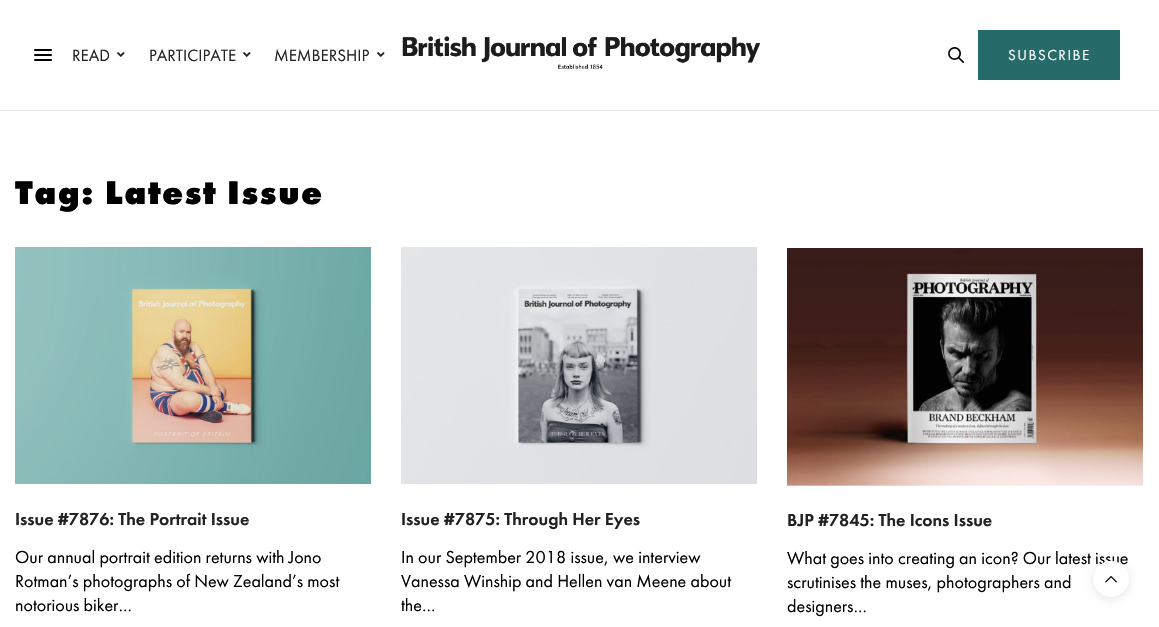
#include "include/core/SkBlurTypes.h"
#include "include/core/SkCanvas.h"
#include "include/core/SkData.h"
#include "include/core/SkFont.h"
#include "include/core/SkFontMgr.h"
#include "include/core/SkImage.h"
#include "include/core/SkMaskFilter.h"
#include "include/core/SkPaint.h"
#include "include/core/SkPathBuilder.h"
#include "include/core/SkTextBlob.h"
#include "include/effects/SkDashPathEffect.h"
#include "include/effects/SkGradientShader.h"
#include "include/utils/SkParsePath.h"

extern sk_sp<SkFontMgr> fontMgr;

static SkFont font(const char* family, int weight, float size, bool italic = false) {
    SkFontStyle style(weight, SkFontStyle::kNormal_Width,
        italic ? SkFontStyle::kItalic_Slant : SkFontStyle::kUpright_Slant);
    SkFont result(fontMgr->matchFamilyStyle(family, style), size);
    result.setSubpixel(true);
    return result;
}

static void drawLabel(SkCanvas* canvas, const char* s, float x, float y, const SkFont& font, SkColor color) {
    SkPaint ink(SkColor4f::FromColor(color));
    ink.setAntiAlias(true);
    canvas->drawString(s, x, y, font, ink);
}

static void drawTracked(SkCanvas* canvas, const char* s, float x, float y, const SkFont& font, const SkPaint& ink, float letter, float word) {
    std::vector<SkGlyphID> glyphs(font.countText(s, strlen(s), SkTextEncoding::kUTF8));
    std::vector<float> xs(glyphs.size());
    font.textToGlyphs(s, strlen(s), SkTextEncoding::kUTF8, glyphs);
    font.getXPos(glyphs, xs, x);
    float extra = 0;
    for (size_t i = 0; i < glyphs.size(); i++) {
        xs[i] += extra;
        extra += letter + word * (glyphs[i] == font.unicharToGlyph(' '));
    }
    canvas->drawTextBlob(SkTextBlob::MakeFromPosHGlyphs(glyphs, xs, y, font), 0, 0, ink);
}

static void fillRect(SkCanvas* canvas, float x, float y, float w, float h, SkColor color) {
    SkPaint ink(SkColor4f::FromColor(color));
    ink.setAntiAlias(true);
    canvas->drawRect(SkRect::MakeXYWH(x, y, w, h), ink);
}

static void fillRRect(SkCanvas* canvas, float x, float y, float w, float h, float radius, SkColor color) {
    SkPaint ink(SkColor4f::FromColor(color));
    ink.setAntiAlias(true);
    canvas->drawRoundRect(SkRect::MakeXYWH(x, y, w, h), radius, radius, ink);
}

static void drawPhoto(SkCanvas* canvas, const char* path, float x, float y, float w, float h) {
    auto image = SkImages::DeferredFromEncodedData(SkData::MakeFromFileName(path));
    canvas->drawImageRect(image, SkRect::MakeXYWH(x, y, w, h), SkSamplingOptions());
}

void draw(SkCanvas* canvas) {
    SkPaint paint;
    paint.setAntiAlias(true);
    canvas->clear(0xFFFFFFFF);
    fillRect(canvas, 0, 110, 1159, 1, 0xFFE4E4E4);
    fillRRect(canvas, 34, 49, 18, 2, 1, 0xFF000000);
    fillRRect(canvas, 34, 54, 18, 2, 1, 0xFF000000);
    fillRRect(canvas, 34, 59, 18, 2, 1, 0xFF000000);
    SkFont font1 = font("Futura PT", 400, 17);
    drawLabel(canvas, "READ", 72, 61, font1, 0xFF222222);
    drawPhoto(canvas, "assets/img1.png", 117, 52, 8, 5);
    drawLabel(canvas, "PARTICIPATE", 149, 61, font1, 0xFF222222);
    drawPhoto(canvas, "assets/img1.png", 243, 52, 8, 5);
    drawLabel(canvas, "MEMBERSHIP", 274, 61, font1, 0xFF222222);
    drawPhoto(canvas, "assets/img1.png", 377, 52, 8, 5);
    drawPhoto(canvas, "assets/img2.png", 402, 36, 358, 33);
    drawPhoto(canvas, "assets/img3.png", 948, 47, 17, 16);
    fillRect(canvas, 978, 30, 142, 50, 0xFF266B69);
    SkFont font2 = font("Futura PT", 400, 15);
    paint.setColor(0xFFFFFFFF);
    drawTracked(canvas, "SUBSCRIBE", 1008, 60, font2, paint, 1.5f, 0);
    SkFont font3 = font("Futura PT", 800, 34);
    paint.setColor(0xFF000000);
    drawTracked(canvas, "Tag: Latest Issue", 15, 204, font3, paint, 1.75f, 0);
    drawPhoto(canvas, "assets/img4.png", 15, 247, 356, 237);
    SkFont font4 = font("Futura PT", 500, 18);
    drawLabel(canvas, "Issue #7876: The Portrait Issue", 15, 525, font4, 0xFF222222);
    SkFont font5 = font("Futura PT", 400, 18);
    drawLabel(canvas, "Our annual portrait edition returns with Jono", 15, 563, font5, 0xFF000000);
    drawLabel(canvas, "Rotman’s photographs of New Zealand’s most", 15, 587, font5, 0xFF000000);
    drawLabel(canvas, "notorious biker…", 15, 611, font5, 0xFF000000);
    drawPhoto(canvas, "assets/img5.png", 401, 247, 356, 237);
    drawLabel(canvas, "Issue #7875: Through Her Eyes", 401, 525, font4, 0xFF222222);
    drawLabel(canvas, "In our September 2018 issue, we interview", 401, 563, font5, 0xFF000000);
    drawLabel(canvas, "Vanessa Winship and Hellen van Meene about", 401, 587, font5, 0xFF000000);
    drawLabel(canvas, "the…", 401, 611, font5, 0xFF000000);
    drawPhoto(canvas, "assets/img6.png", 787, 248, 356, 238);
    drawLabel(canvas, "BJP #7845: The Icons Issue", 787, 526, font4, 0xFF222222);
    drawLabel(canvas, "What goes into creating an icon? Our latest issue", 787, 564, font5, 0xFF000000);
    drawLabel(canvas, "scrutinises the muses, photographers and", 787, 588, font5, 0xFF000000);
    drawLabel(canvas, "designers…", 787, 612, font5, 0xFF000000);
    paint.setColor(0x1A000000);
    paint.setMaskFilter(SkMaskFilter::MakeBlur(kNormal_SkBlurStyle, 4));
    canvas->drawRoundRect(SkRect::MakeXYWH(1093, 563, 36, 36), 18, 18, paint);
    paint.setMaskFilter(nullptr);
    paint.setColor(0xFFFFFFFF);
    canvas->drawCircle(1111, 579, 18, paint);
    drawPhoto(canvas, "assets/img7.png", 1105, 576, 12, 7);
}
